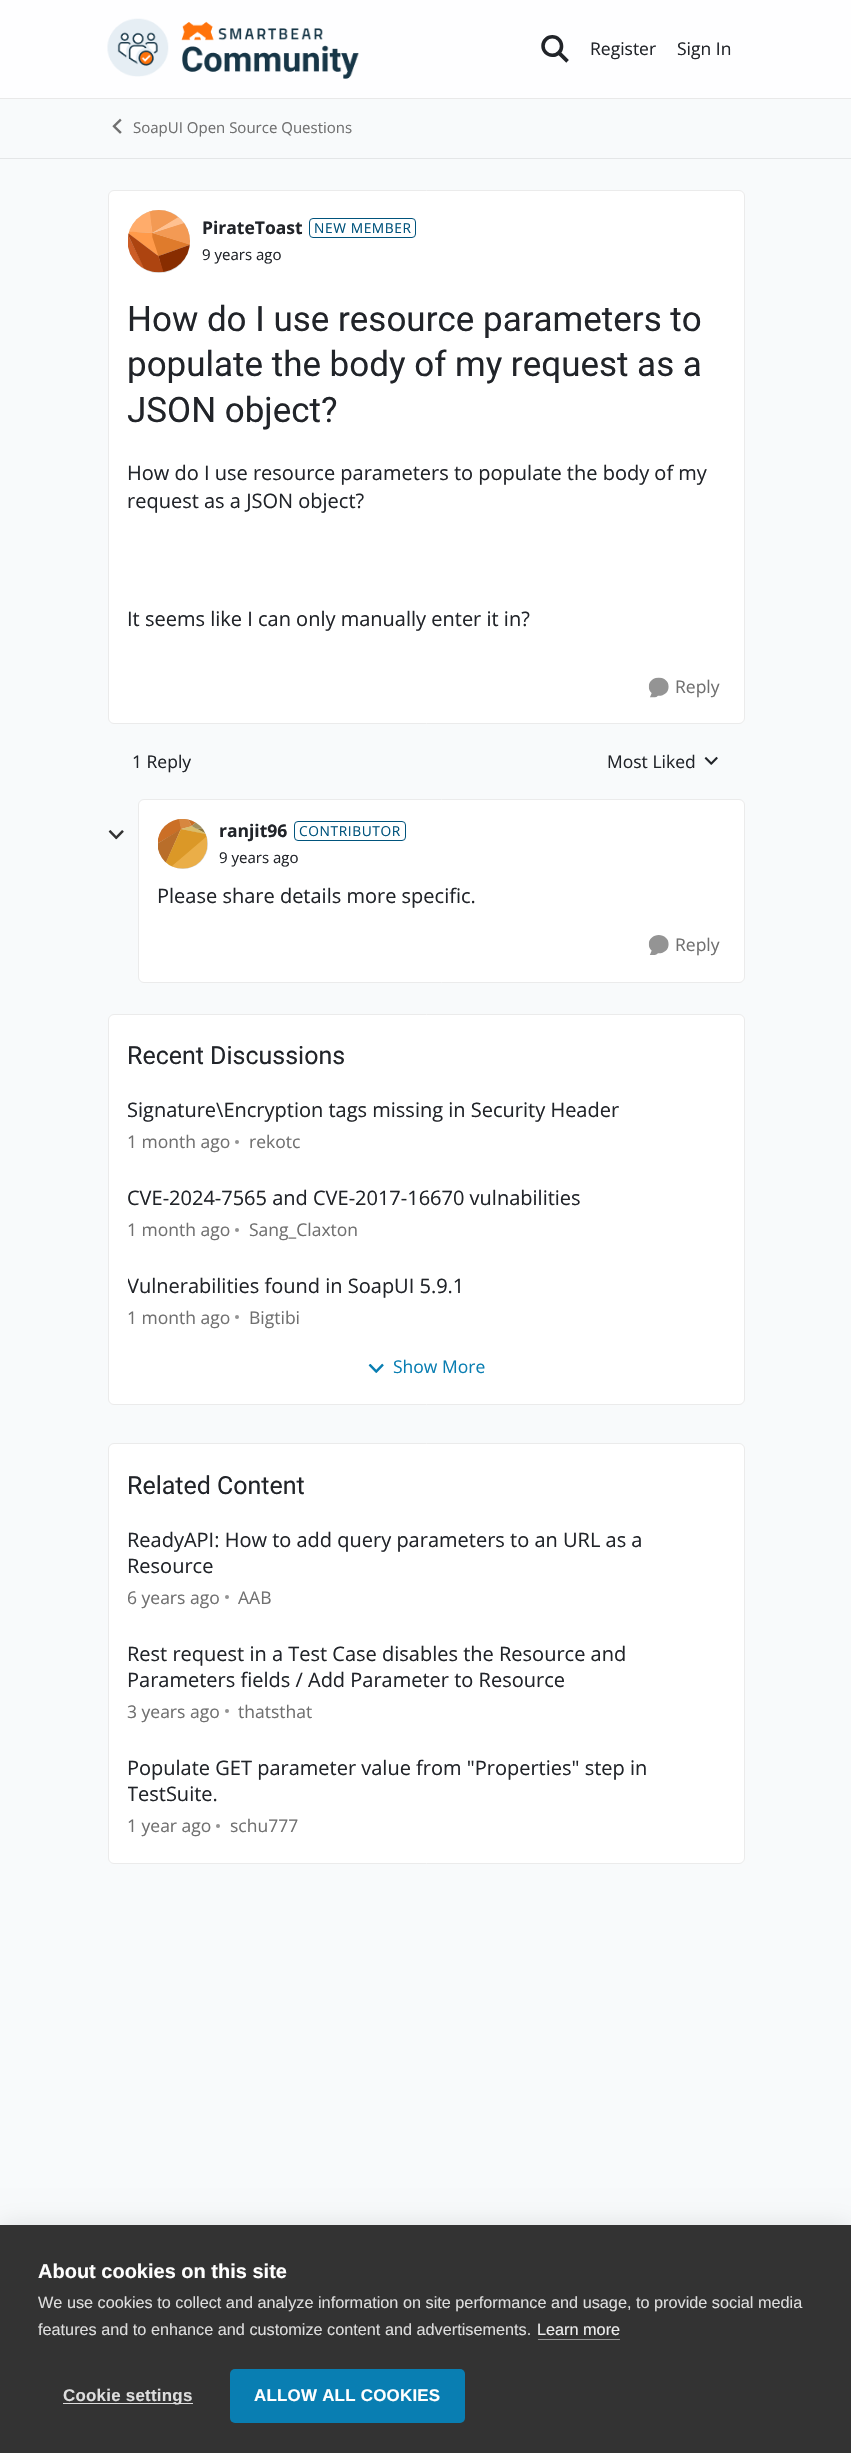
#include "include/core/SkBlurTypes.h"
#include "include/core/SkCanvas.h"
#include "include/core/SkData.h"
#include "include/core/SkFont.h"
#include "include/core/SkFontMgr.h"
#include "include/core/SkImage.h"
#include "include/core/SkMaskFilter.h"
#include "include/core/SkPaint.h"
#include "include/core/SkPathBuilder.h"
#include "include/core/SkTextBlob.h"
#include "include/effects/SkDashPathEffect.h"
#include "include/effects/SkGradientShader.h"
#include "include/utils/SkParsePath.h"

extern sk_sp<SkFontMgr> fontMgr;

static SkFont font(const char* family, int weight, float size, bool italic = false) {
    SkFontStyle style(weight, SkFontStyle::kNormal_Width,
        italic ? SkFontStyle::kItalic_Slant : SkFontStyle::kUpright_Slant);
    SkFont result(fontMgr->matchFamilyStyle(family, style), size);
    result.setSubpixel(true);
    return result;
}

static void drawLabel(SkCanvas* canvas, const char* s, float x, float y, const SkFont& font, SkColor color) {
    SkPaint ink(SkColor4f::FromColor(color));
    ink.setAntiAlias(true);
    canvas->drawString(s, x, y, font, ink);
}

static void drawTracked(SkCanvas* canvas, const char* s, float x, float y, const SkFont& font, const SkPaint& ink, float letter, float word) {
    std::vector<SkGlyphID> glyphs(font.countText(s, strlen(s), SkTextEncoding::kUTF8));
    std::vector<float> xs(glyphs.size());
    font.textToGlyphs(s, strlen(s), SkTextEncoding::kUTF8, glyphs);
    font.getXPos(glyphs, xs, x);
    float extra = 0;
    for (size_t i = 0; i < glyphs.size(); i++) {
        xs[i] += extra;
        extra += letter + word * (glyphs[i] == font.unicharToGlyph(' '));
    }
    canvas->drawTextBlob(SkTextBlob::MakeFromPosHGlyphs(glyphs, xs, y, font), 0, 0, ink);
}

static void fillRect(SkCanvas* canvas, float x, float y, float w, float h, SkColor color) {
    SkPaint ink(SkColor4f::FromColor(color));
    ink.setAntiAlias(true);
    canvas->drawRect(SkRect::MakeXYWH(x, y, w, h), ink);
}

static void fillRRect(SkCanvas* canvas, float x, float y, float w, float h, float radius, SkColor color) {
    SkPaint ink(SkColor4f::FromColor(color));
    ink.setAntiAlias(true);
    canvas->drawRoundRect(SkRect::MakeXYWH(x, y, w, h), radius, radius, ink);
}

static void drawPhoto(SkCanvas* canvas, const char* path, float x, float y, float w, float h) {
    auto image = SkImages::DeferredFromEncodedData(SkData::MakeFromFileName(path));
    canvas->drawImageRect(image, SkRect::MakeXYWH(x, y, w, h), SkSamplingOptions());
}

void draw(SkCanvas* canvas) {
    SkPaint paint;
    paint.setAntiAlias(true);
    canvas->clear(0xFFF8FAFB);
    fillRect(canvas, 0, 0, 851, 98, 0xCCFFFFFF);
    fillRect(canvas, 0, 98, 851, 1, 0xFFE9E9E9);
    drawPhoto(canvas, "assets/img1.png", 107, 18, 252, 61);
    drawPhoto(canvas, "assets/img2.png", 541, 35, 28, 28);
    SkFont font1 = font("Open Sans", 400, 17.5f);
    drawLabel(canvas, "Register", 590, 55, font1, 0xFF212429);
    drawLabel(canvas, "Sign In", 677, 55, font1, 0xFF212429);
    fillRect(canvas, 0, 158, 851, 1, 0xFFE4E6E7);
    drawPhoto(canvas, "assets/img3.png", 112, 118, 10, 16);
    SkFont font2 = font("Open Sans", 400, 15);
    drawLabel(canvas, "SoapUI Open Source Questions", 133, 133, font2, 0xFF707070);
    paint.setColor(0xFFFFFFFF);
    canvas->drawRoundRect(SkRect::MakeXYWH(108.5f, 190.5f, 636, 533), 5.5f, 5.5f, paint);
    paint.setStroke(true);
    paint.setStrokeWidth(1);
    paint.setColor(0xFFEBEBEB);
    canvas->drawRoundRect(SkRect::MakeXYWH(108.5f, 190.5f, 636, 533), 5.5f, 5.5f, paint);
    fillRRect(canvas, 128, 210, 62, 63, 31, 0xFFD9D9D9);
    drawPhoto(canvas, "assets/img4.png", 128, 210, 62, 63);
    SkFont font3 = font("Open Sans", 700, 17.5f);
    drawLabel(canvas, "PirateToast", 202, 234, font3, 0xFF212429);
    paint.setColor(0xFF00537C);
    canvas->drawRoundRect(SkRect::MakeXYWH(309.5f, 218.5f, 106, 19), 3.5f, 3.5f, paint);
    SkFont font4 = font("Open Sans", 400, 13.75f);
    paint.setStroke(false);
    drawTracked(canvas, "NEW MEMBER", 314, 233, font4, paint, 0.6f, 0);
    drawLabel(canvas, "9 years ago", 202, 260, font2, 0xFF212429);
    SkFont font5 = font("Roboto", 400, 35);
    drawLabel(canvas, "How do I use resource parameters to", 127, 331, font5, 0xFF212429);
    drawLabel(canvas, "populate the body of my request as a", 127, 376, font5, 0xFF212429);
    drawLabel(canvas, "JSON object?", 127, 422, font5, 0xFF212429);
    SkFont font6 = font("Open Sans", 400, 20);
    drawLabel(canvas, "How do I use resource parameters to populate the body of my", 127, 480, font6, 0xFF212429);
    drawLabel(canvas, "request as a JSON object?", 127, 508, font6, 0xFF212429);
    drawLabel(canvas, "It seems like I can only manually enter it in?", 127, 626, font6, 0xFF212429);
    drawPhoto(canvas, "assets/img5.png", 648, 677, 21, 21);
    drawLabel(canvas, "Reply", 675, 693, font1, 0xFF707070);
    drawLabel(canvas, "1 Reply", 132, 768, font1, 0xFF212429);
    drawLabel(canvas, "Most Liked", 607, 768, font1, 0xFF212429);
    drawPhoto(canvas, "assets/img6.png", 704, 756, 14, 9);
    drawPhoto(canvas, "assets/img7.png", 108, 830, 16, 10);
    paint.setColor(0xFFFFFFFF);
    canvas->drawRoundRect(SkRect::MakeXYWH(138.5f, 799.5f, 606, 183), 5.5f, 5.5f, paint);
    paint.setStroke(true);
    paint.setColor(0xFFEBEBEB);
    canvas->drawRoundRect(SkRect::MakeXYWH(138.5f, 799.5f, 606, 183), 5.5f, 5.5f, paint);
    paint.setStroke(false);
    paint.setColor(0xFFD9D9D9);
    canvas->drawCircle(183, 844, 25, paint);
    drawPhoto(canvas, "assets/img8.png", 158, 819, 50, 50);
    drawLabel(canvas, "ranjit96", 219, 837, font3, 0xFF212429);
    paint.setStroke(true);
    paint.setColor(0xFF00537C);
    canvas->drawRoundRect(SkRect::MakeXYWH(294.5f, 821.5f, 111, 19), 3.5f, 3.5f, paint);
    paint.setStroke(false);
    drawTracked(canvas, "CONTRIBUTOR", 299, 836, font4, paint, 0.6f, 0);
    drawLabel(canvas, "9 years ago", 219, 863, font2, 0xFF212429);
    drawLabel(canvas, "Please share details more specific.", 157, 903, font6, 0xFF212429);
    drawPhoto(canvas, "assets/img9.png", 648, 935, 21, 20);
    drawLabel(canvas, "Reply", 675, 951, font1, 0xFF707070);
    paint.setColor(0xFFFFFFFF);
    canvas->drawRoundRect(SkRect::MakeXYWH(108.5f, 1014.5f, 636, 390), 5.5f, 5.5f, paint);
    paint.setStroke(true);
    paint.setColor(0xFFEBEBEB);
    canvas->drawRoundRect(SkRect::MakeXYWH(108.5f, 1014.5f, 636, 390), 5.5f, 5.5f, paint);
    SkFont font7 = font("Roboto", 400, 25);
    drawLabel(canvas, "Recent Discussions", 127, 1064, font7, 0xFF212429);
    drawLabel(canvas, "Signature\\Encryption tags missing in Security Header", 127, 1117, font6, 0xFF212429);
    drawLabel(canvas, "1 month ago", 127, 1148, font1, 0xFF707070);
    paint.setStroke(false);
    paint.setColor(0xFF949494);
    canvas->drawCircle(237, 1142, 2, paint);
    drawLabel(canvas, "rekotc", 249, 1148, font1, 0xFF707070);
    drawLabel(canvas, "CVE-2024-7565 and CVE-2017-16670 vulnabilities", 127, 1205, font6, 0xFF212429);
    drawLabel(canvas, "1 month ago", 127, 1236, font1, 0xFF707070);
    canvas->drawCircle(237, 1230, 2, paint);
    drawLabel(canvas, "Sang_Claxton", 249, 1236, font1, 0xFF707070);
    canvas->save();
    canvas->clipRect(SkRect::MakeXYWH(128, 1273, 336, 26));
    drawLabel(canvas, "Vulnerabilities found in SoapUI 5.9.1", 127, 1293, font6, 0xFF212429);
    canvas->restore();
    drawLabel(canvas, "1 month ago", 127, 1324, font1, 0xFF707070);
    canvas->drawCircle(237, 1317, 2, paint);
    drawLabel(canvas, "Bigtibi", 249, 1324, font1, 0xFF707070);
    drawPhoto(canvas, "assets/img10.png", 368, 1363, 16, 10);
    drawLabel(canvas, "Show More", 393, 1373, font1, 0xFF097EB2);
    paint.setColor(0xFFFFFFFF);
    canvas->drawRoundRect(SkRect::MakeXYWH(108.5f, 1443.5f, 636, 420), 5.5f, 5.5f, paint);
    paint.setStroke(true);
    paint.setColor(0xFFEBEBEB);
    canvas->drawRoundRect(SkRect::MakeXYWH(108.5f, 1443.5f, 636, 420), 5.5f, 5.5f, paint);
    drawLabel(canvas, "Related Content", 127, 1494, font7, 0xFF212429);
    drawLabel(canvas, "ReadyAPI: How to add query parameters to an URL as a", 127, 1547, font6, 0xFF212429);
    drawLabel(canvas, "Resource", 127, 1573, font6, 0xFF212429);
    drawLabel(canvas, "6 years ago", 127, 1604, font1, 0xFF707070);
    paint.setStroke(false);
    paint.setColor(0xFF949494);
    canvas->drawCircle(227, 1597, 2, paint);
    drawLabel(canvas, "AAB", 238, 1604, font1, 0xFF707070);
    drawLabel(canvas, "Rest request in a Test Case disables the Resource and", 127, 1661, font6, 0xFF212429);
    drawLabel(canvas, "Parameters fields / Add Parameter to Resource", 127, 1687, font6, 0xFF212429);
    drawLabel(canvas, "3 years ago", 127, 1718, font1, 0xFF707070);
    canvas->drawCircle(227, 1711, 2, paint);
    drawLabel(canvas, "thatsthat", 238, 1718, font1, 0xFF707070);
    drawLabel(canvas, "Populate GET parameter value from \"Properties\" step in", 127, 1775, font6, 0xFF212429);
    canvas->save();
    canvas->clipRect(SkRect::MakeXYWH(128, 1755, 597, 51));
    drawLabel(canvas, "TestSuite.", 127, 1801, font6, 0xFF212429);
    canvas->restore();
    drawLabel(canvas, "1 year ago", 127, 1832, font1, 0xFF707070);
    canvas->drawCircle(218, 1826, 2, paint);
    drawLabel(canvas, "schu777", 230, 1832, font1, 0xFF707070);
    paint.setColor(0x1A000000);
    paint.setMaskFilter(SkMaskFilter::MakeBlur(kNormal_SkBlurStyle, 12.5f));
    canvas->drawRect(SkRect::MakeXYWH(0, 2225, 851, 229), paint);
    paint.setMaskFilter(nullptr);
    fillRect(canvas, 0, 2225, 851, 228, 0xFF333333);
    SkFont font8 = font("Liberation Sans", 700, 20);
    drawLabel(canvas, "About cookies on this site", 38, 2278, font8, 0xFFFFFFFF);
    SkFont font9 = font("Liberation Sans", 400, 16.25f);
    drawLabel(canvas, "We use cookies to collect and analyze information on site performance and usage, to provide social media", 38, 2308, font9, 0xFFDDDDDD);
    drawLabel(canvas, "features and to enhance and customize content and advertisements.", 38, 2335, font9, 0xFFDDDDDD);
    drawLabel(canvas, "Learn more", 537, 2335, font9, 0xFFEEEEEE);
    fillRect(canvas, 538, 2339, 82, 1, 0xFF999999);
    fillRect(canvas, 63, 2403, 130, 1, 0xFFDDDDDD);
    SkFont font10 = font("Liberation Sans", 700, 16.9f);
    paint.setColor(0xFFDDDDDD);
    drawTracked(canvas, "Cookie settings", 63, 2401, font10, paint, 0.25f, 0);
    fillRRect(canvas, 230, 2369, 235, 54, 5, 0xFF097EB2);
    paint.setColor(0xFFFFFFFF);
    drawTracked(canvas, "ALLOW ALL COOKIES", 254, 2401, font10, paint, 0.25f, 0);
}
